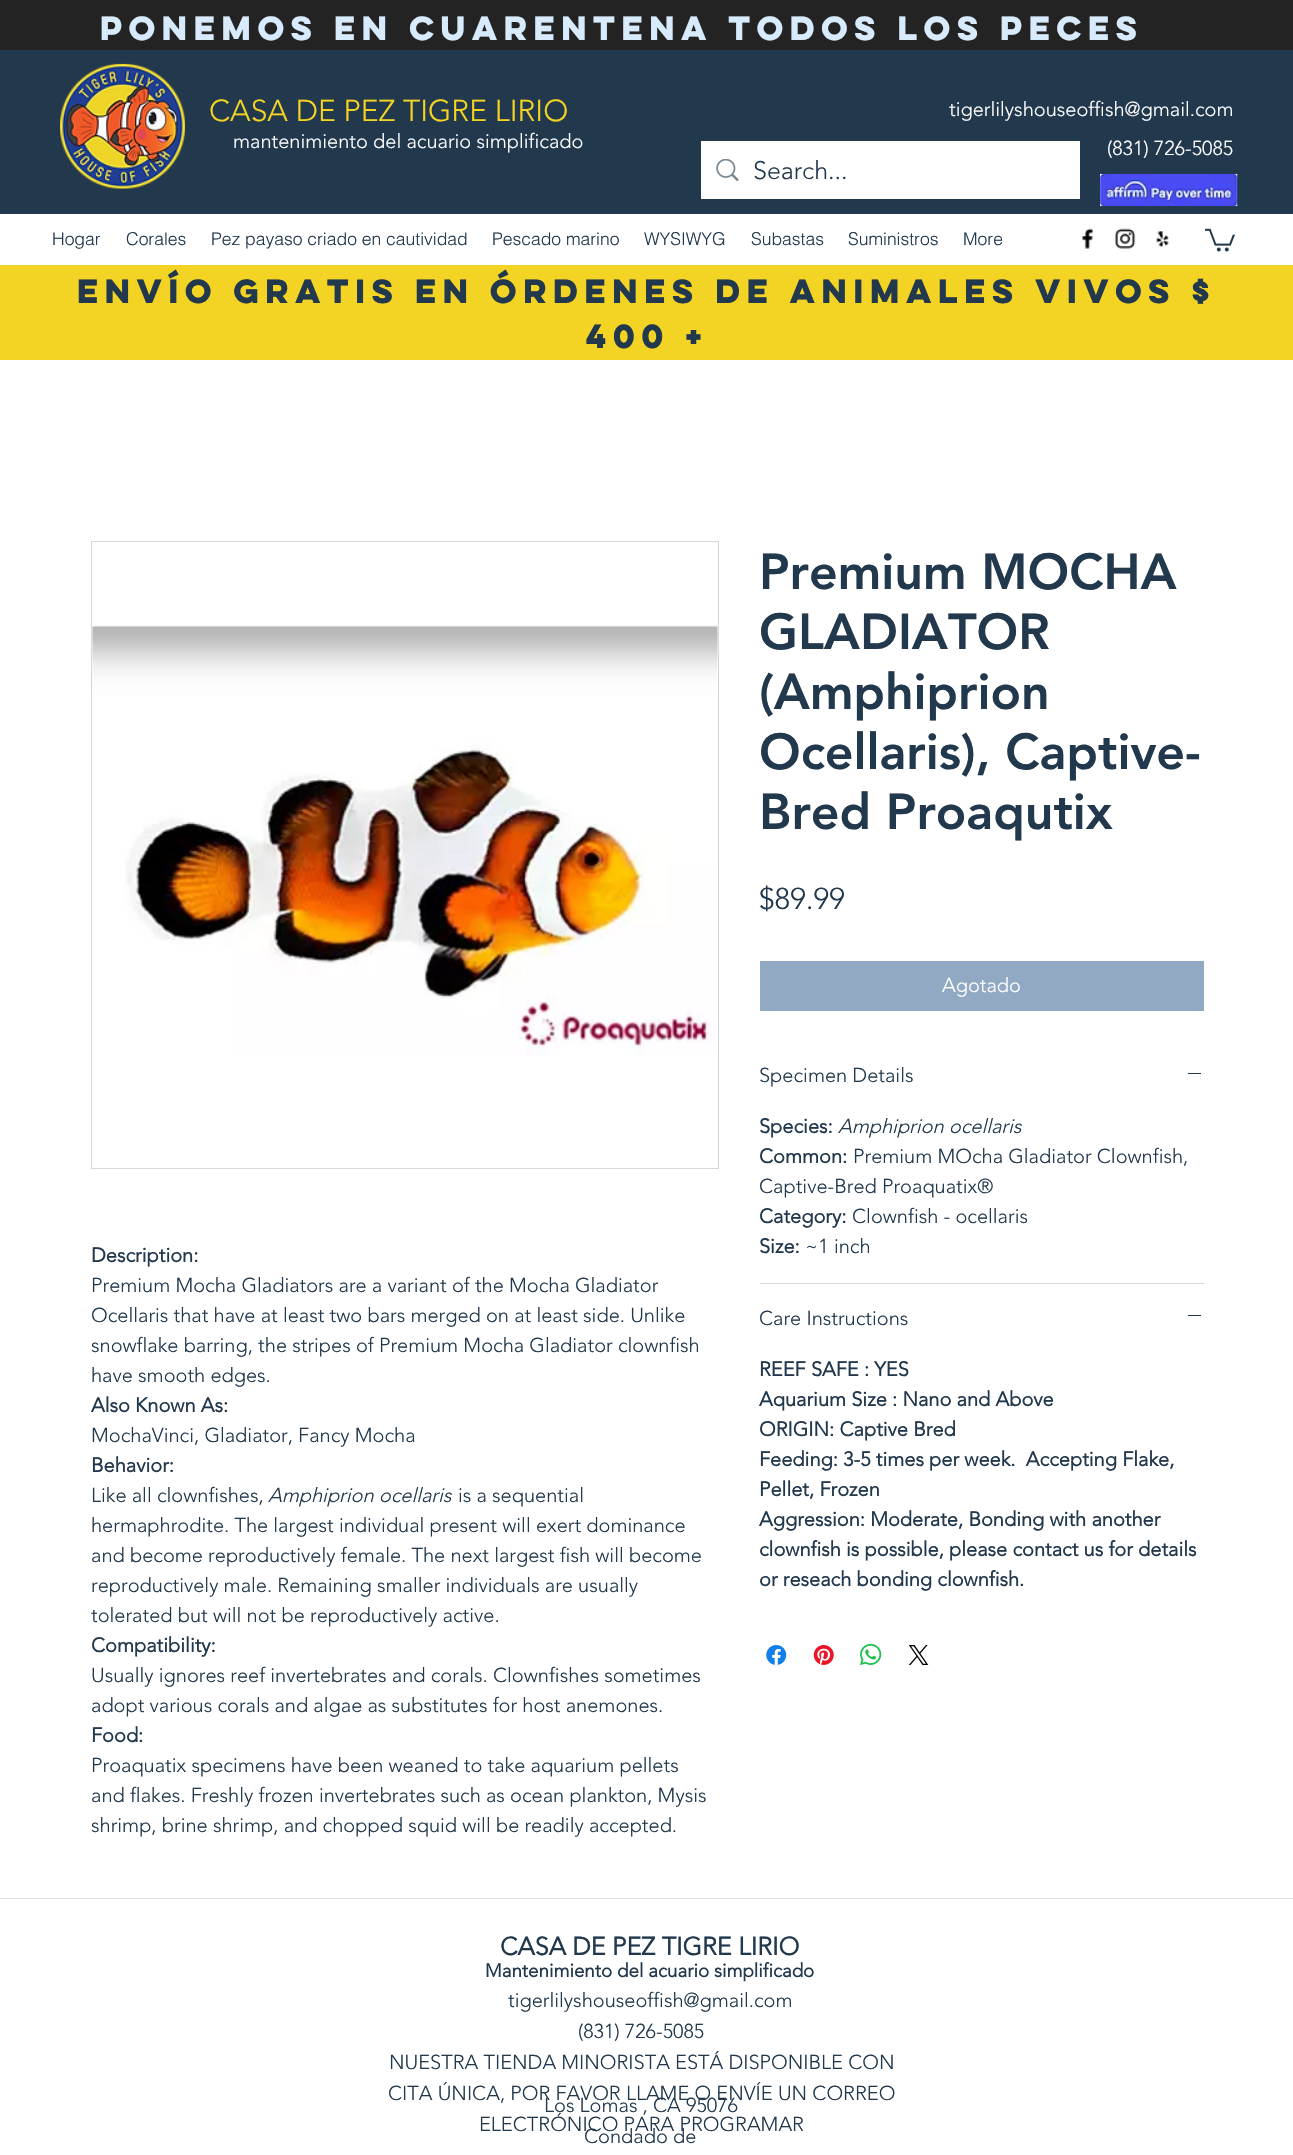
#include "include/core/SkBlurTypes.h"
#include "include/core/SkCanvas.h"
#include "include/core/SkData.h"
#include "include/core/SkFont.h"
#include "include/core/SkFontMgr.h"
#include "include/core/SkImage.h"
#include "include/core/SkMaskFilter.h"
#include "include/core/SkPaint.h"
#include "include/core/SkPathBuilder.h"
#include "include/core/SkTextBlob.h"
#include "include/effects/SkDashPathEffect.h"
#include "include/effects/SkGradientShader.h"
#include "include/utils/SkParsePath.h"

extern sk_sp<SkFontMgr> fontMgr;

static SkFont font(const char* family, int weight, float size, bool italic = false) {
    SkFontStyle style(weight, SkFontStyle::kNormal_Width,
        italic ? SkFontStyle::kItalic_Slant : SkFontStyle::kUpright_Slant);
    SkFont result(fontMgr->matchFamilyStyle(family, style), size);
    result.setSubpixel(true);
    return result;
}

static void drawLabel(SkCanvas* canvas, const char* s, float x, float y, const SkFont& font, SkColor color) {
    SkPaint ink(SkColor4f::FromColor(color));
    ink.setAntiAlias(true);
    canvas->drawString(s, x, y, font, ink);
}

static void fillRect(SkCanvas* canvas, float x, float y, float w, float h, SkColor color) {
    SkPaint ink(SkColor4f::FromColor(color));
    ink.setAntiAlias(true);
    canvas->drawRect(SkRect::MakeXYWH(x, y, w, h), ink);
}

static void drawPhoto(SkCanvas* canvas, const char* path, float x, float y, float w, float h) {
    auto image = SkImages::DeferredFromEncodedData(SkData::MakeFromFileName(path));
    canvas->drawImageRect(image, SkRect::MakeXYWH(x, y, w, h), SkSamplingOptions());
}

void draw(SkCanvas* canvas) {
    SkPaint paint;
    paint.setAntiAlias(true);
    canvas->clear(0xFFFFFFFF);
    fillRect(canvas, 0, 0, 1293, 50, 0xFF242323);
    SkFont font1 = font("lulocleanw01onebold", 700, 30);
    drawLabel(canvas, "Ponemos en cuarentena TODOS los peces", 100, 40, font1, 0xFFD8EBFD);
    fillRect(canvas, 0, 50, 1293, 164, 0xFF22384D);
    drawPhoto(canvas, "assets/img1.png", 60, 63, 125, 126);
    SkFont font2 = font("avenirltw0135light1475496", 300, 30);
    drawLabel(canvas, "CASA DE PEZ TIGRE LIRIO", 209, 121, font2, 0xFFF3D324);
    SkFont font3 = font("avenirltw0135light1475496", 300, 20);
    drawLabel(canvas, "tigerlilyshouseoffish@gmail.com", 949, 116, font3, 0xFFFFFFFF);
    drawLabel(canvas, "mantenimiento del acuario simplificado", 233, 148, font3, 0xFFFFFFFF);
    drawLabel(canvas, "(831) 726-5085", 1107, 155, font3, 0xFFFFFFFF);
    fillRect(canvas, 701, 141, 379, 58, 0xFFFFFFFF);
    drawPhoto(canvas, "assets/img2.png", 716, 159, 23, 22);
    SkFont font4 = font("avenirltw0135light1475496", 300, 25);
    drawLabel(canvas, "Search...", 753, 179, font4, 0xFF22384D);
    drawPhoto(canvas, "assets/img3.png", 1100, 173, 138, 34);
    SkFont font5 = font("helvetica", 300, 17.5f);
    drawLabel(canvas, "Hogar", 52, 245, font5, 0xFF22384D);
    drawLabel(canvas, "Corales", 126, 245, font5, 0xFF22384D);
    drawLabel(canvas, "Pez payaso criado en cautividad", 211, 245, font5, 0xFF22384D);
    drawLabel(canvas, "Pescado marino", 492, 245, font5, 0xFF22384D);
    drawLabel(canvas, "WYSIWYG", 644, 245, font5, 0xFF22384D);
    drawLabel(canvas, "Subastas", 751, 245, font5, 0xFF22384D);
    drawLabel(canvas, "Suministros", 848, 245, font5, 0xFF22384D);
    drawLabel(canvas, "More", 963, 245, font5, 0xFF22384D);
    drawPhoto(canvas, "assets/img4.png", 1082, 228, 12, 21);
    drawPhoto(canvas, "assets/img5.png", 1114, 228, 22, 21);
    drawPhoto(canvas, "assets/img6.png", 1156, 231, 13, 16);
    drawPhoto(canvas, "assets/img7.png", 1205, 228, 30, 24);
    fillRect(canvas, 0, 265, 1293, 95, 0xFFF3D324);
    drawLabel(canvas, "ENVÍO GRATIS EN ÓRDENES DE ANIMALES VIVOS $", 77, 303, font1, 0xFF22384D);
    drawLabel(canvas, "400 +", 586, 348, font1, 0xFF22384D);
    paint.setStroke(true);
    paint.setStrokeWidth(1);
    paint.setColor(0xFFD3D7DB);
    canvas->drawRect(SkRect::MakeXYWH(91.5f, 541.5f, 627, 627), paint);
    drawPhoto(canvas, "assets/img8.png", 92, 625, 626, 431);
    SkFont font6 = font("avenirltw0135light1475496", 700, 20);
    drawLabel(canvas, "Description:", 91, 1262, font6, 0xFF22384D);
    drawLabel(canvas, "Premium Mocha Gladiators are a variant of the Mocha Gladiator", 91, 1292, font3, 0xFF22384D);
    drawLabel(canvas, "Ocellaris that have at least two bars merged on at least side. Unlike", 91, 1322, font3, 0xFF22384D);
    drawLabel(canvas, "snowflake barring, the stripes of Premium Mocha Gladiator clownfish", 91, 1352, font3, 0xFF22384D);
    drawLabel(canvas, "have smooth edges.", 91, 1382, font3, 0xFF22384D);
    drawLabel(canvas, "Also Known As:", 91, 1412, font6, 0xFF22384D);
    drawLabel(canvas, "MochaVinci, Gladiator, Fancy Mocha", 91, 1442, font3, 0xFF22384D);
    drawLabel(canvas, "Behavior:", 91, 1472, font6, 0xFF22384D);
    drawLabel(canvas, "Like all clownfishes,", 91, 1502, font3, 0xFF22384D);
    SkFont font7 = font("avenirltw0135light1475496", 300, 20, true);
    drawLabel(canvas, "Amphiprion ocellaris", 268, 1502, font7, 0xFF22384D);
    drawLabel(canvas, "is a sequential", 458, 1502, font3, 0xFF22384D);
    drawLabel(canvas, "hermaphrodite. The largest individual present will exert dominance", 91, 1532, font3, 0xFF22384D);
    drawLabel(canvas, "and become reproductively female. The next largest fish will become", 91, 1562, font3, 0xFF22384D);
    drawLabel(canvas, "reproductively male. Remaining smaller individuals are usually", 91, 1592, font3, 0xFF22384D);
    drawLabel(canvas, "tolerated but will not be reproductively active.", 91, 1622, font3, 0xFF22384D);
    drawLabel(canvas, "Compatibility:", 91, 1652, font6, 0xFF22384D);
    drawLabel(canvas, "Usually ignores reef invertebrates and corals. Clownfishes sometimes", 91, 1682, font3, 0xFF22384D);
    drawLabel(canvas, "adopt various corals and algae as substitutes for host anemones.", 91, 1712, font3, 0xFF22384D);
    drawLabel(canvas, "Food:", 91, 1742, font6, 0xFF22384D);
    drawLabel(canvas, "Proaquatix specimens have been weaned to take aquarium pellets", 91, 1772, font3, 0xFF22384D);
    drawLabel(canvas, "and flakes. Freshly frozen invertebrates such as ocean plankton, Mysis", 91, 1802, font3, 0xFF22384D);
    drawLabel(canvas, "shrimp, brine shrimp, and chopped squid will be readily accepted.", 91, 1832, font3, 0xFF22384D);
    SkFont font8 = font("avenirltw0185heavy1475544", 900, 50);
    drawLabel(canvas, "Premium MOCHA", 759, 589, font8, 0xFF22384D);
    drawLabel(canvas, "GLADIATOR", 759, 649, font8, 0xFF22384D);
    drawLabel(canvas, "(Amphiprion", 759, 709, font8, 0xFF22384D);
    drawLabel(canvas, "Ocellaris), Captive-", 759, 769, font8, 0xFF22384D);
    drawLabel(canvas, "Bred Proaqutix", 759, 829, font8, 0xFF22384D);
    drawLabel(canvas, "$89.99", 759, 909, font2, 0xFF22384D);
    fillRect(canvas, 760, 961, 444, 50, 0xFF91A9C2);
    drawLabel(canvas, "Agotado", 942, 992, font3, 0xFFFFFFFF);
    fillRect(canvas, 760, 1283, 444, 1, 0xFFD3D7DB);
    drawLabel(canvas, "Specimen Details", 759, 1082, font3, 0xFF22384D);
    fillRect(canvas, 1188, 1073, 13, 1, 0xFF22384D);
    drawLabel(canvas, "Species:", 759, 1133, font6, 0xFF22384D);
    drawLabel(canvas, "Amphiprion ocellaris", 838, 1133, font7, 0xFF22384D);
    drawLabel(canvas, "Common:", 759, 1163, font6, 0xFF22384D);
    drawLabel(canvas, "Premium MOcha Gladiator Clownfish,", 853, 1163, font3, 0xFF22384D);
    drawLabel(canvas, "Captive-Bred Proaquatix®", 759, 1193, font3, 0xFF22384D);
    drawLabel(canvas, "Category:", 759, 1223, font6, 0xFF22384D);
    drawLabel(canvas, "Clownfish - ocellaris", 852, 1223, font3, 0xFF22384D);
    drawLabel(canvas, "Size:", 759, 1253, font6, 0xFF22384D);
    drawLabel(canvas, "~1 inch", 805, 1253, font3, 0xFF22384D);
    drawLabel(canvas, "Care Instructions", 759, 1325, font3, 0xFF22384D);
    fillRect(canvas, 1188, 1315, 13, 1, 0xFF22384D);
    drawLabel(canvas, "REEF SAFE : YES", 759, 1376, font6, 0xFF22384D);
    drawLabel(canvas, "Aquarium Size : Nano and Above", 759, 1406, font6, 0xFF22384D);
    drawLabel(canvas, "ORIGIN: Captive Bred", 759, 1436, font6, 0xFF22384D);
    drawLabel(canvas, "Feeding: 3-5 times per week.  Accepting Flake,", 759, 1466, font6, 0xFF22384D);
    drawLabel(canvas, "Pellet, Frozen", 759, 1496, font6, 0xFF22384D);
    drawLabel(canvas, "Aggression: Moderate, Bonding with another", 759, 1526, font6, 0xFF22384D);
    drawLabel(canvas, "clownfish is possible, please contact us for details", 759, 1556, font6, 0xFF22384D);
    drawLabel(canvas, "or reseach bonding clownfish.", 759, 1586, font6, 0xFF22384D);
    drawPhoto(canvas, "assets/img9.png", 766, 1645, 21, 20);
    drawPhoto(canvas, "assets/img10.png", 813, 1645, 21, 20);
    drawPhoto(canvas, "assets/img11.png", 860, 1643, 22, 23);
    drawPhoto(canvas, "assets/img12.png", 908, 1645, 21, 20);
    fillRect(canvas, 0, 1898, 1293, 1, 0xFFDEE1E4);
    SkFont font9 = font("avenirltw0135light1475496", 700, 25);
    drawLabel(canvas, "CASA DE PEZ TIGRE LIRIO", 500, 1955, font9, 0xFF22384D);
    SkFont font10 = font("avenirltw0135light1475496", 700, 18.75f);
    drawLabel(canvas, "Mantenimiento del acuario simplificado", 485, 1977, font10, 0xFF22384D);
    drawLabel(canvas, "tigerlilyshouseoffish@gmail.com", 508, 2007, font3, 0xFF22384D);
    drawLabel(canvas, "(831) 726-5085", 578, 2038, font3, 0xFF22384D);
    drawLabel(canvas, "NUESTRA TIENDA MINORISTA ESTÁ DISPONIBLE CON", 389, 2069, font3, 0xFF22384D);
    drawLabel(canvas, "CITA ÚNICA, POR FAVOR LLAME O ENVÍE UN CORREO", 388, 2100, font3, 0xFF22384D);
    drawLabel(canvas, "ELECTRÓNICO PARA PROGRAMAR", 479, 2131, font3, 0xFF22384D);
    drawLabel(canvas, "Los Lomas , CA 95076", 544, 2112, font3, 0xFF22384D);
    drawLabel(canvas, "Condado de", 584, 2143, font3, 0xFF22384D);
}
